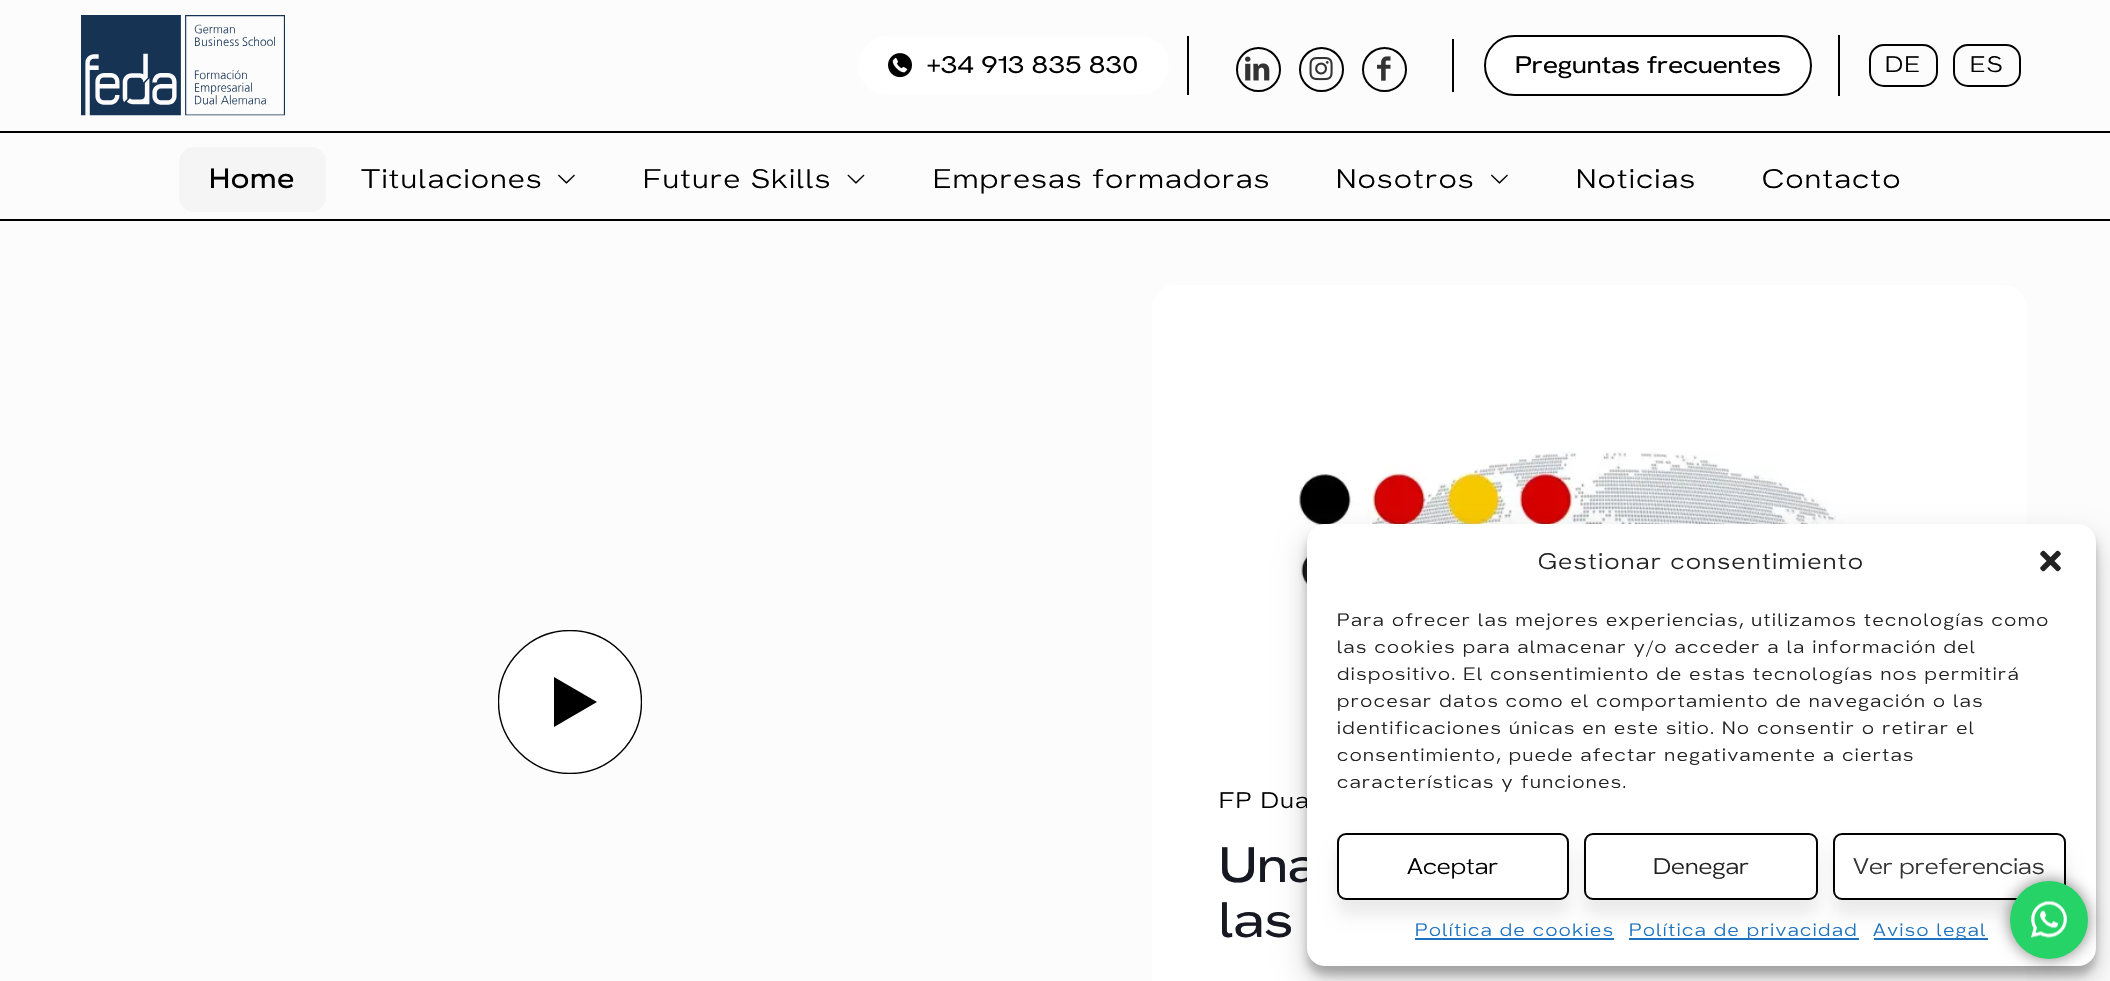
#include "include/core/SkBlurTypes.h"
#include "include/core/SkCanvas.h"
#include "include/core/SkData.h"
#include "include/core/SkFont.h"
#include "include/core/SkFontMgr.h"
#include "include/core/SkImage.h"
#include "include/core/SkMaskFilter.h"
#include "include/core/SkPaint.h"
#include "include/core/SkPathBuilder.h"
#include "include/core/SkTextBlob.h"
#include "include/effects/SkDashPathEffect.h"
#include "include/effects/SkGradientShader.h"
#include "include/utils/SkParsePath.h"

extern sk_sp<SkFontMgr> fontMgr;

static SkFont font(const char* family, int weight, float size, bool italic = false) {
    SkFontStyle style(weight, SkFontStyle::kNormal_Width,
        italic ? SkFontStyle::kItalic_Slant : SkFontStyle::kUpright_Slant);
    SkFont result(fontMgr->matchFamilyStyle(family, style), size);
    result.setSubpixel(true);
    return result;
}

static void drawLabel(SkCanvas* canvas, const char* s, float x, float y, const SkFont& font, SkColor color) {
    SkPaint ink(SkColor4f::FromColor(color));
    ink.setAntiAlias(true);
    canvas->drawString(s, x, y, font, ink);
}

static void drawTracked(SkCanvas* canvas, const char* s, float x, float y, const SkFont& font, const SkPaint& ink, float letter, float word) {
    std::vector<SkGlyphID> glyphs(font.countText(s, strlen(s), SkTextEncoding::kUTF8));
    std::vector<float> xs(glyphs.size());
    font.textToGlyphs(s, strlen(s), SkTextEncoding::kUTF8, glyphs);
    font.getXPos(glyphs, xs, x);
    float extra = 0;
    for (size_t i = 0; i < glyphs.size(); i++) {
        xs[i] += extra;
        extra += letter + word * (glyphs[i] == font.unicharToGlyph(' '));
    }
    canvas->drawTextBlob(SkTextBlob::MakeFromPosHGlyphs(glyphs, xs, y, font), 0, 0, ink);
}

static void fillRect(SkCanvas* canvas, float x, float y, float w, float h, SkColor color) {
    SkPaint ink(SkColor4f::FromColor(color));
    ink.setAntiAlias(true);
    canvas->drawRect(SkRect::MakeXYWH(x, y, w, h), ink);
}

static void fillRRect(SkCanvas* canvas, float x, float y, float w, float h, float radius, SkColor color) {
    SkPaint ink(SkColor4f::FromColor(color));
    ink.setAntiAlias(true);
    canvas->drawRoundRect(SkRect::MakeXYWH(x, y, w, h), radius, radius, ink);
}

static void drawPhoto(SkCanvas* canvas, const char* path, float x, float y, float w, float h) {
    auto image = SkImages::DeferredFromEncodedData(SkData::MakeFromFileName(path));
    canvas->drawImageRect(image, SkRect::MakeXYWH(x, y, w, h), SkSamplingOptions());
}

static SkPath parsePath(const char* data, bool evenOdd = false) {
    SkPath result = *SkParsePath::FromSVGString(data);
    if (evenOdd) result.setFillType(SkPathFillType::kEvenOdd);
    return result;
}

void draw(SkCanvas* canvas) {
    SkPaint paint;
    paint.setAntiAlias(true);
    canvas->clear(0xFFFCFCFC);
    drawPhoto(canvas, "assets/img1.png", 81, 15, 204, 101);
    fillRect(canvas, 1187, 36, 2, 59, 0xFF000000);
    fillRRect(canvas, 858, 36, 311, 59, 29.5f, 0xFFFFFFFF);
    drawPhoto(canvas, "assets/img2.png", 888, 53, 24, 25);
    SkFont font1 = font("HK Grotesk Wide", 400, 24);
    drawLabel(canvas, "+34 913 835 830", 927, 73, font1, 0xFF000000);
    fillRect(canvas, 1452, 39, 2, 53, 0xFF000000);
    paint.setStroke(true);
    paint.setStrokeWidth(2);
    paint.setColor(0xFF000000);
    canvas->drawCircle(1258.5f, 69.5f, 21.5f, paint);
    drawPhoto(canvas, "assets/img3.png", 1245, 56, 25, 25);
    canvas->drawCircle(1321.5f, 69.5f, 21.5f, paint);
    drawPhoto(canvas, "assets/img4.png", 1309, 57, 24, 24);
    canvas->drawCircle(1384.5f, 69.5f, 21.5f, paint);
    drawPhoto(canvas, "assets/img5.png", 1377, 56, 14, 25);
    fillRect(canvas, 1838, 35, 2, 61, 0xFF000000);
    paint.setStroke(false);
    paint.setColor(0xFFFFFFFF);
    canvas->drawRoundRect(SkRect::MakeXYWH(1485, 36, 326, 59), 29.5f, 29.5f, paint);
    paint.setStroke(true);
    paint.setColor(0xFF000000);
    canvas->drawRoundRect(SkRect::MakeXYWH(1485, 36, 326, 59), 29.5f, 29.5f, paint);
    drawLabel(canvas, "Preguntas frecuentes", 1515, 73, font1, 0xFF000000);
    canvas->drawRoundRect(SkRect::MakeXYWH(1870, 45, 67, 41), 14, 14, paint);
    SkFont font2 = font("HK Grotesk Wide", 300, 22.5f);
    paint.setStroke(false);
    drawTracked(canvas, "DE", 1885, 72, font2, paint, 1.5f, 0);
    paint.setStroke(true);
    canvas->drawRoundRect(SkRect::MakeXYWH(1954, 45, 66, 41), 14, 14, paint);
    paint.setStroke(false);
    drawTracked(canvas, "ES", 1970, 72, font2, paint, 1.5f, 0);
    fillRect(canvas, 0, 131, 2110, 2, 0xFF000000);
    fillRect(canvas, 0, 219, 2110, 2, 0xFF000000);
    fillRRect(canvas, 179, 147, 147, 65, 15, 0xFFF5F5F5);
    SkFont font3 = font("HK Grotesk Wide", 700, 27);
    drawTracked(canvas, "Home", 209, 188, font3, paint, 1.5f, 0);
    SkFont font4 = font("HK Grotesk Wide", 300, 27);
    drawTracked(canvas, "Titulaciones", 361, 188, font4, paint, 1.5f, 0);
    drawPhoto(canvas, "assets/img6.png", 558, 174, 17, 10);
    drawTracked(canvas, "Future Skills", 643, 188, font4, paint, 1.5f, 0);
    drawPhoto(canvas, "assets/img7.png", 847, 174, 18, 10);
    drawTracked(canvas, "Empresas formadoras", 933, 188, font4, paint, 1.5f, 0);
    drawTracked(canvas, "Nosotros", 1336, 188, font4, paint, 1.5f, 0);
    drawPhoto(canvas, "assets/img6.png", 1491, 174, 17, 10);
    drawTracked(canvas, "Noticias", 1576, 188, font4, paint, 1.5f, 0);
    drawTracked(canvas, "Contacto", 1762, 188, font4, paint, 1.5f, 0);
    paint.setColor(0xFFFFFFFF);
    canvas->drawCircle(570, 702, 71.5f, paint);
    canvas->save();
    canvas->clipRect(SkRect::MakeXYWH(498, 630, 144, 144));
    paint.setStroke(true);
    paint.setStrokeWidth(1.4f);
    paint.setColor(0xFF000000);
    canvas->drawCircle(570, 702, 71.5f, paint);
    canvas->restore();
    paint.setStroke(false);
    canvas->drawPath(parsePath("M597 702L554 677V727Z"), paint);
    paint.setColor(0xFFFFFFFF);
    canvas->drawPath(parsePath("M1175 285H2004C2016.5 285 2027 295.5 2027 308V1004H1152V308C1152 295.5 1162.5 285 1175 285Z"), paint);
    drawPhoto(canvas, "assets/img8.png", 1298, 450, 583, 237);
    paint.setColor(0xFF000000);
    drawTracked(canvas, "FP Dua", 1219, 808, font2, paint, 1.5f, 0);
    SkFont font5 = font("HK Grotesk Wide", 400, 50);
    drawLabel(canvas, "Una", 1219, 882, font5, 0xFF161922);
    drawLabel(canvas, "las", 1219, 937, font5, 0xFF161922);
    paint.setColor(0x3B000000);
    paint.setMaskFilter(SkMaskFilter::MakeBlur(kNormal_SkBlurStyle, 4.5f));
    canvas->drawRoundRect(SkRect::MakeXYWH(1307, 533, 789, 442), 18, 18, paint);
    paint.setMaskFilter(nullptr);
    paint.setColor(0x30000000);
    paint.setMaskFilter(SkMaskFilter::MakeBlur(kNormal_SkBlurStyle, 15));
    canvas->drawRoundRect(SkRect::MakeXYWH(1307, 539, 789, 442), 18, 18, paint);
    paint.setMaskFilter(nullptr);
    fillRRect(canvas, 1307, 524, 789, 442, 18, 0xFFFFFFFF);
    paint.setColor(0xFF222222);
    drawTracked(canvas, "Gestionar consentimiento", 1538, 569, font2, paint, 1.5f, 0);
    drawPhoto(canvas, "assets/img9.png", 2040, 550, 21, 22);
    SkFont font6 = font("HK Grotesk Wide", 300, 18);
    drawTracked(canvas, "Para ofrecer las mejores experiencias, utilizamos tecnologías como", 1337, 626, font6, paint, 1.5f, 0);
    drawTracked(canvas, "las cookies para almacenar y/o acceder a la información del", 1337, 653, font6, paint, 1.5f, 0);
    drawTracked(canvas, "dispositivo. El consentimiento de estas tecnologías nos permitirá", 1337, 680, font6, paint, 1.5f, 0);
    drawTracked(canvas, "procesar datos como el comportamiento de navegación o las", 1337, 707, font6, paint, 1.5f, 0);
    drawTracked(canvas, "identificaciones únicas en este sitio. No consentir o retirar el", 1337, 734, font6, paint, 1.5f, 0);
    drawTracked(canvas, "consentimiento, puede afectar negativamente a ciertas", 1337, 761, font6, paint, 1.5f, 0);
    drawTracked(canvas, "características y funciones.", 1337, 788, font6, paint, 1.5f, 0);
    fillRect(canvas, 1415, 938, 199, 2, 0xFF1E73BE);
    paint.setColor(0x14000000);
    paint.setMaskFilter(SkMaskFilter::MakeBlur(kNormal_SkBlurStyle, 7.5f));
    canvas->drawRoundRect(SkRect::MakeXYWH(1337, 848, 232, 67), 9, 9, paint);
    paint.setMaskFilter(nullptr);
    paint.setColor(0xFFFFFFFF);
    canvas->drawRoundRect(SkRect::MakeXYWH(1338, 834, 230, 65), 8, 8, paint);
    paint.setStroke(true);
    paint.setStrokeWidth(2);
    paint.setColor(0xFF000000);
    canvas->drawRoundRect(SkRect::MakeXYWH(1338, 834, 230, 65), 8, 8, paint);
    drawLabel(canvas, "Aceptar", 1407, 874, font2, 0xFF000000);
    fillRect(canvas, 1629, 938, 230, 2, 0xFF1E73BE);
    paint.setStroke(false);
    paint.setColor(0x14000000);
    paint.setMaskFilter(SkMaskFilter::MakeBlur(kNormal_SkBlurStyle, 7.5f));
    canvas->drawRoundRect(SkRect::MakeXYWH(1584, 848, 234, 67), 9, 9, paint);
    paint.setMaskFilter(nullptr);
    paint.setColor(0xFFFFFFFF);
    canvas->drawRoundRect(SkRect::MakeXYWH(1585, 834, 232, 65), 8, 8, paint);
    paint.setStroke(true);
    paint.setColor(0xFF000000);
    canvas->drawRoundRect(SkRect::MakeXYWH(1585, 834, 232, 65), 8, 8, paint);
    drawLabel(canvas, "Denegar", 1653, 874, font2, 0xFF222222);
    fillRect(canvas, 1874, 938, 114, 2, 0xFF1E73BE);
    paint.setStroke(false);
    paint.setColor(0x14000000);
    paint.setMaskFilter(SkMaskFilter::MakeBlur(kNormal_SkBlurStyle, 7.5f));
    canvas->drawRoundRect(SkRect::MakeXYWH(1833, 848, 233, 67), 9, 9, paint);
    paint.setMaskFilter(nullptr);
    paint.setColor(0xFFFFFFFF);
    canvas->drawRoundRect(SkRect::MakeXYWH(1834, 834, 231, 65), 8, 8, paint);
    paint.setStroke(true);
    paint.setColor(0xFF000000);
    canvas->drawRoundRect(SkRect::MakeXYWH(1834, 834, 231, 65), 8, 8, paint);
    drawLabel(canvas, "Ver preferencias", 1853, 874, font2, 0xFF333333);
    paint.setStroke(false);
    paint.setColor(0xFF1E73BE);
    drawTracked(canvas, "Política de cookies", 1415, 936, font6, paint, 1.5f, 0);
    drawTracked(canvas, "Política de privacidad", 1629, 936, font6, paint, 1.5f, 0);
    drawTracked(canvas, "Aviso legal", 1873, 936, font6, paint, 1.5f, 0);
    paint.setColor(0x80000000);
    paint.setMaskFilter(SkMaskFilter::MakeBlur(kNormal_SkBlurStyle, 8));
    canvas->drawRoundRect(SkRect::MakeXYWH(2010, 881, 78, 78), 39, 39, paint);
    paint.setMaskFilter(nullptr);
    paint.setColor(0xFF25D366);
    canvas->drawCircle(2049, 920, 39, paint);
    drawPhoto(canvas, "assets/img10.png", 2031, 901, 36, 37);
}
